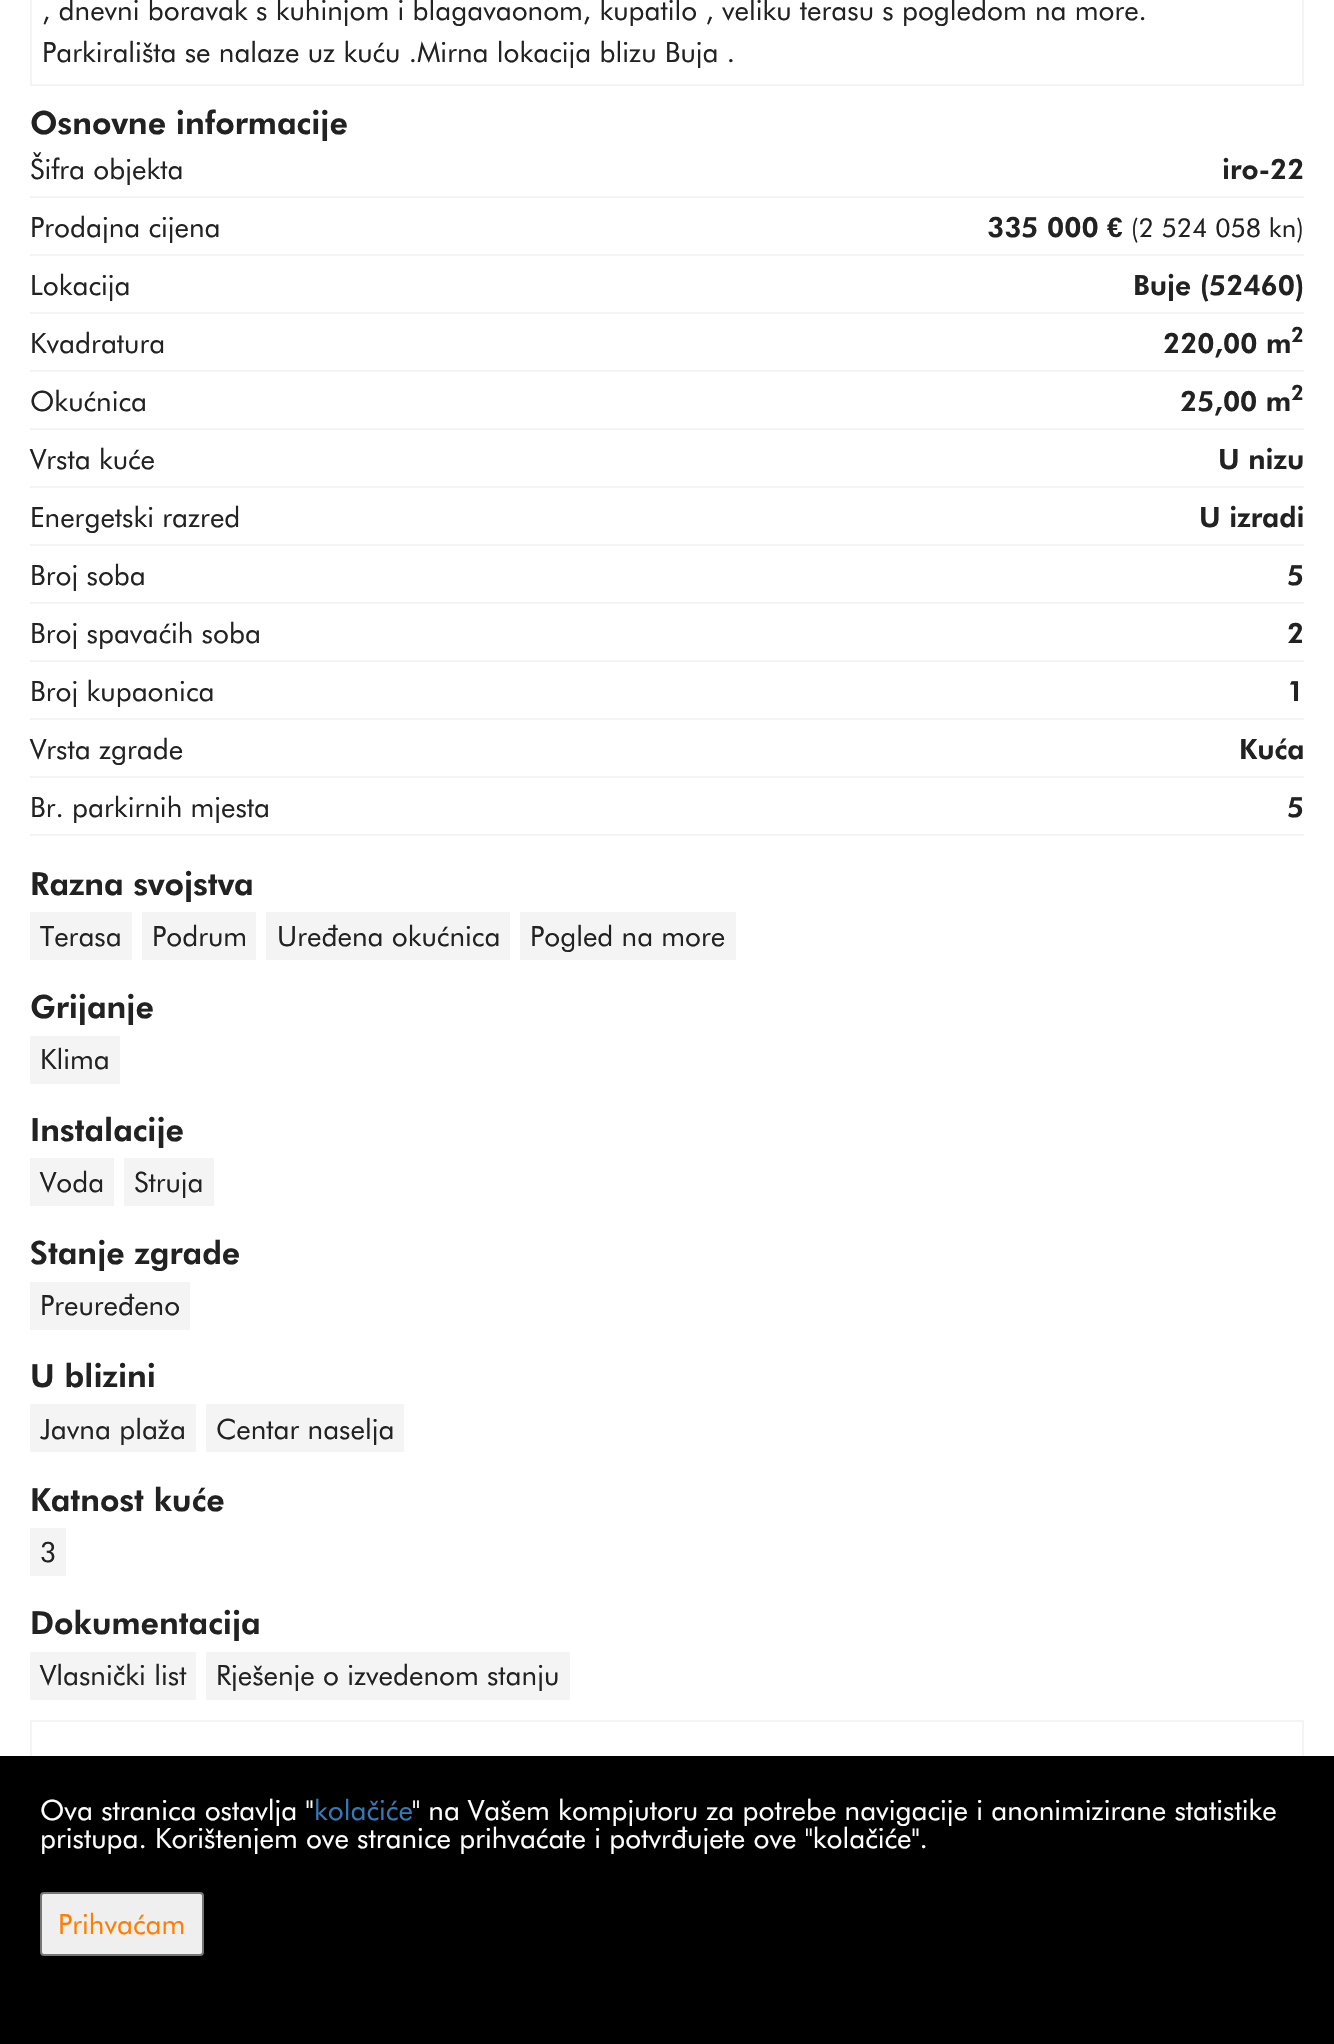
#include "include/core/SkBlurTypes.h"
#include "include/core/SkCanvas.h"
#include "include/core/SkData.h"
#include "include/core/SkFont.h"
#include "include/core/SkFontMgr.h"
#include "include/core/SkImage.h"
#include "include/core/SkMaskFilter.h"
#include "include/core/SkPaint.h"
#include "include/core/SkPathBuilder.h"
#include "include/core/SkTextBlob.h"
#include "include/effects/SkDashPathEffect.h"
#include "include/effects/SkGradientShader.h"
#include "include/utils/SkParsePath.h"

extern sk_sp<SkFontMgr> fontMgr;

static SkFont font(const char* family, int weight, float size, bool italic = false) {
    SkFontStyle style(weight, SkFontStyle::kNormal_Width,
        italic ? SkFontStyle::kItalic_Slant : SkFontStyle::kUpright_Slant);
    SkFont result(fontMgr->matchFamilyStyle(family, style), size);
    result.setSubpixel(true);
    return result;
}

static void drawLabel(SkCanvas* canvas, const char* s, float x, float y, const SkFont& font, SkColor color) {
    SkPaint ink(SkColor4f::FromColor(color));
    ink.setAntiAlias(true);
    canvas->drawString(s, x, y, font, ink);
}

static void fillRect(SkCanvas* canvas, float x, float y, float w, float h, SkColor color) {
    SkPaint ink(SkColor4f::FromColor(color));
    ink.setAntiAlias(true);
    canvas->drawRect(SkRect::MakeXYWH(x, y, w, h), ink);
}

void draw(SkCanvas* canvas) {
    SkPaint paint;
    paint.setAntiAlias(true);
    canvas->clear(0xFFFFFFFF);
    paint.setStroke(true);
    paint.setStrokeWidth(2);
    paint.setColor(0xFFF4F4F4);
    canvas->drawRect(SkRect::MakeXYWH(31, -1, 1272, 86), paint);
    SkFont font1 = font("Futura", 400, 28);
    drawLabel(canvas, ", dnevni boravak s kuhinjom i blagavaonom, kupatilo , veliku terasu s pogledom na more.", 42, 20, font1, 0xFF222222);
    drawLabel(canvas, "Parkirališta se nalaze uz kuću .Mirna lokacija blizu Buja .", 42, 62, font1, 0xFF222222);
    SkFont font2 = font("Futura", 900, 32);
    drawLabel(canvas, "Osnovne informacije", 30, 134, font2, 0xFF222222);
    fillRect(canvas, 30, 196, 1274, 2, 0xFFF4F4F4);
    drawLabel(canvas, "Šifra objekta", 30, 179, font1, 0xFF222222);
    SkFont font3 = font("Futura", 900, 28);
    drawLabel(canvas, "iro-22", 1222, 179, font3, 0xFF222222);
    fillRect(canvas, 30, 254, 1274, 2, 0xFFF4F4F4);
    drawLabel(canvas, "Prodajna cijena", 30, 237, font1, 0xFF222222);
    drawLabel(canvas, "335 000", 987, 237, font3, 0xFF222222);
    SkFont font4 = font("Liberation Sans", 700, 28);
    drawLabel(canvas, "€", 1107, 237, font4, 0xFF222222);
    SkFont font5 = font("Futura", 400, 26);
    drawLabel(canvas, "(2 524 058 kn)", 1131, 237, font5, 0xFF222222);
    fillRect(canvas, 30, 312, 1274, 2, 0xFFF4F4F4);
    drawLabel(canvas, "Lokacija", 30, 295, font1, 0xFF222222);
    drawLabel(canvas, "Buje (52460)", 1133, 295, font3, 0xFF222222);
    fillRect(canvas, 30, 370, 1274, 2, 0xFFF4F4F4);
    drawLabel(canvas, "Kvadratura", 30, 353, font1, 0xFF222222);
    drawLabel(canvas, "220,00 m", 1163, 353, font3, 0xFF222222);
    SkFont font6 = font("Futura", 900, 21);
    drawLabel(canvas, "2", 1291, 342, font6, 0xFF222222);
    fillRect(canvas, 30, 428, 1274, 2, 0xFFF4F4F4);
    drawLabel(canvas, "Okućnica", 30, 411, font1, 0xFF222222);
    drawLabel(canvas, "25,00 m", 1180, 411, font3, 0xFF222222);
    drawLabel(canvas, "2", 1291, 400, font6, 0xFF222222);
    fillRect(canvas, 30, 486, 1274, 2, 0xFFF4F4F4);
    drawLabel(canvas, "Vrsta kuće", 30, 469, font1, 0xFF222222);
    drawLabel(canvas, "U nizu", 1218, 469, font3, 0xFF222222);
    fillRect(canvas, 30, 544, 1274, 2, 0xFFF4F4F4);
    drawLabel(canvas, "Energetski razred", 30, 527, font1, 0xFF222222);
    drawLabel(canvas, "U izradi", 1199, 527, font3, 0xFF222222);
    fillRect(canvas, 30, 602, 1274, 2, 0xFFF4F4F4);
    drawLabel(canvas, "Broj soba", 30, 585, font1, 0xFF222222);
    drawLabel(canvas, "5", 1287, 585, font3, 0xFF222222);
    fillRect(canvas, 30, 660, 1274, 2, 0xFFF4F4F4);
    drawLabel(canvas, "Broj spavaćih soba", 30, 643, font1, 0xFF222222);
    drawLabel(canvas, "2", 1287, 643, font3, 0xFF222222);
    fillRect(canvas, 30, 718, 1274, 2, 0xFFF4F4F4);
    drawLabel(canvas, "Broj kupaonica", 30, 701, font1, 0xFF222222);
    drawLabel(canvas, "1", 1287, 701, font3, 0xFF222222);
    fillRect(canvas, 30, 776, 1274, 2, 0xFFF4F4F4);
    drawLabel(canvas, "Vrsta zgrade", 30, 759, font1, 0xFF222222);
    drawLabel(canvas, "Kuća", 1239, 759, font3, 0xFF222222);
    fillRect(canvas, 30, 834, 1274, 2, 0xFFF4F4F4);
    drawLabel(canvas, "Br. parkirnih mjesta", 30, 817, font1, 0xFF222222);
    drawLabel(canvas, "5", 1287, 817, font3, 0xFF222222);
    drawLabel(canvas, "Razna svojstva", 30, 895, font2, 0xFF222222);
    fillRect(canvas, 30, 912, 102, 48, 0xFFF4F4F4);
    drawLabel(canvas, "Terasa", 40, 946, font1, 0xFF222222);
    fillRect(canvas, 142, 912, 114, 48, 0xFFF4F4F4);
    drawLabel(canvas, "Podrum", 152, 946, font1, 0xFF222222);
    fillRect(canvas, 266, 912, 244, 48, 0xFFF4F4F4);
    drawLabel(canvas, "Uređena okućnica", 277, 946, font1, 0xFF222222);
    fillRect(canvas, 520, 912, 216, 48, 0xFFF4F4F4);
    drawLabel(canvas, "Pogled na more", 530, 946, font1, 0xFF222222);
    drawLabel(canvas, "Grijanje", 30, 1018, font2, 0xFF222222);
    fillRect(canvas, 30, 1036, 90, 48, 0xFFF4F4F4);
    drawLabel(canvas, "Klima", 40, 1069, font1, 0xFF222222);
    drawLabel(canvas, "Instalacije", 30, 1141, font2, 0xFF222222);
    fillRect(canvas, 30, 1158, 84, 48, 0xFFF4F4F4);
    drawLabel(canvas, "Voda", 40, 1192, font1, 0xFF222222);
    fillRect(canvas, 124, 1158, 90, 48, 0xFFF4F4F4);
    drawLabel(canvas, "Struja", 134, 1192, font1, 0xFF222222);
    drawLabel(canvas, "Stanje zgrade", 30, 1264, font2, 0xFF222222);
    fillRect(canvas, 30, 1282, 160, 48, 0xFFF4F4F4);
    drawLabel(canvas, "Preuređeno", 40, 1315, font1, 0xFF222222);
    drawLabel(canvas, "U blizini", 30, 1387, font2, 0xFF222222);
    fillRect(canvas, 30, 1404, 166, 48, 0xFFF4F4F4);
    drawLabel(canvas, "Javna plaža", 40, 1439, font1, 0xFF222222);
    fillRect(canvas, 206, 1404, 198, 48, 0xFFF4F4F4);
    drawLabel(canvas, "Centar naselja", 216, 1439, font1, 0xFF222222);
    drawLabel(canvas, "Katnost kuće", 30, 1511, font2, 0xFF222222);
    fillRect(canvas, 30, 1528, 36, 48, 0xFFF4F4F4);
    drawLabel(canvas, "3", 40, 1562, font1, 0xFF222222);
    drawLabel(canvas, "Dokumentacija", 30, 1634, font2, 0xFF222222);
    fillRect(canvas, 30, 1652, 166, 48, 0xFFF4F4F4);
    drawLabel(canvas, "Vlasnički list", 40, 1685, font1, 0xFF222222);
    fillRect(canvas, 206, 1652, 364, 48, 0xFFF4F4F4);
    drawLabel(canvas, "Rješenje o izvedenom stanju", 216, 1685, font1, 0xFF222222);
    canvas->drawRect(SkRect::MakeXYWH(31, 1721, 1272, 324), paint);
    fillRect(canvas, 0, 1756, 1334, 288, 0xFF000000);
    drawLabel(canvas, "Ova stranica ostavlja \"", 40, 1820, font1, 0xFFFFFFFF);
    drawLabel(canvas, "kolačiće", 314, 1820, font1, 0xFF337AB7);
    drawLabel(canvas, "\" na Vašem kompjutoru za potrebe navigacije i anonimizirane statistike", 412, 1820, font1, 0xFFFFFFFF);
    drawLabel(canvas, "pristupa. Korištenjem ove stranice prihvaćate i potvrđujete ove \"kolačiće\".", 40, 1848, font1, 0xFFFFFFFF);
    paint.setStroke(false);
    paint.setColor(0xFFEFEFEF);
    canvas->drawRoundRect(SkRect::MakeXYWH(41, 1893, 162, 62), 3, 3, paint);
    paint.setStroke(true);
    paint.setColor(0xFF767676);
    canvas->drawRoundRect(SkRect::MakeXYWH(41, 1893, 162, 62), 3, 3, paint);
    drawLabel(canvas, "Prihvaćam", 58, 1934, font1, 0xFFFF7E00);
}
